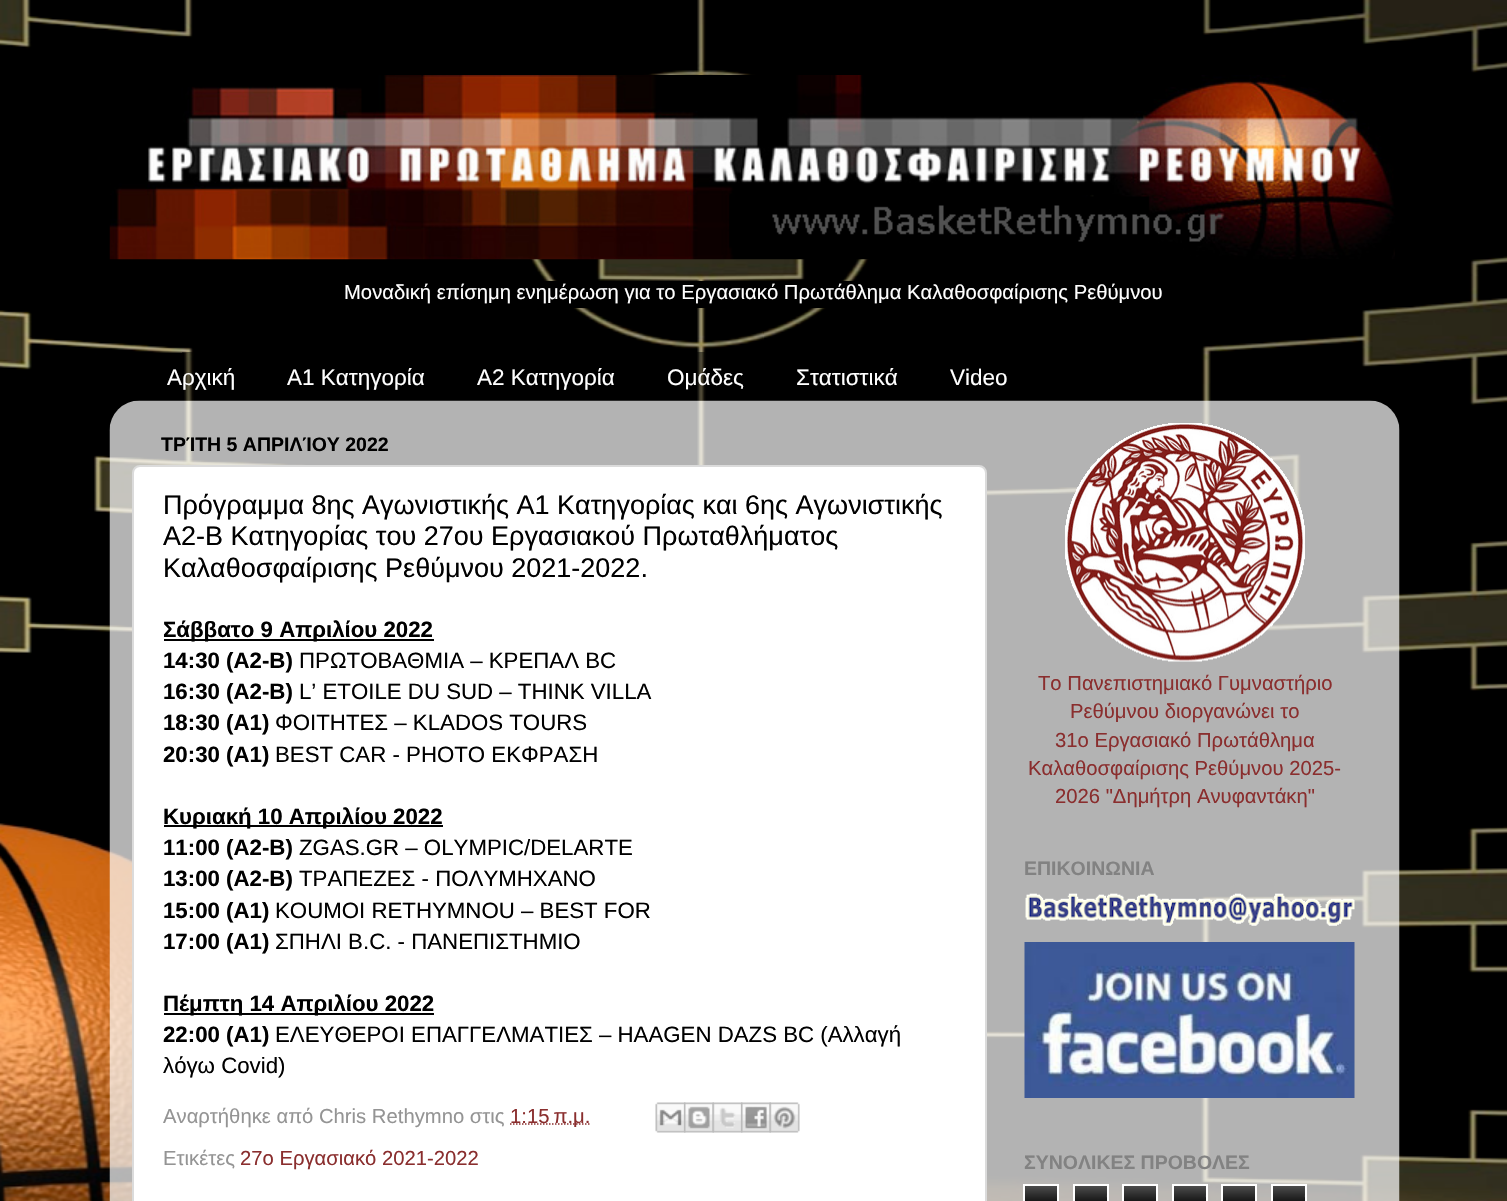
#include "include/core/SkBlurTypes.h"
#include "include/core/SkCanvas.h"
#include "include/core/SkData.h"
#include "include/core/SkFont.h"
#include "include/core/SkFontMgr.h"
#include "include/core/SkImage.h"
#include "include/core/SkMaskFilter.h"
#include "include/core/SkPaint.h"
#include "include/core/SkPathBuilder.h"
#include "include/core/SkTextBlob.h"
#include "include/effects/SkDashPathEffect.h"
#include "include/effects/SkGradientShader.h"
#include "include/utils/SkParsePath.h"

extern sk_sp<SkFontMgr> fontMgr;

static SkFont font(const char* family, int weight, float size, bool italic = false) {
    SkFontStyle style(weight, SkFontStyle::kNormal_Width,
        italic ? SkFontStyle::kItalic_Slant : SkFontStyle::kUpright_Slant);
    SkFont result(fontMgr->matchFamilyStyle(family, style), size);
    result.setSubpixel(true);
    return result;
}

static void drawLabel(SkCanvas* canvas, const char* s, float x, float y, const SkFont& font, SkColor color) {
    SkPaint ink(SkColor4f::FromColor(color));
    ink.setAntiAlias(true);
    canvas->drawString(s, x, y, font, ink);
}

static void fillRect(SkCanvas* canvas, float x, float y, float w, float h, SkColor color) {
    SkPaint ink(SkColor4f::FromColor(color));
    ink.setAntiAlias(true);
    canvas->drawRect(SkRect::MakeXYWH(x, y, w, h), ink);
}

static void drawPhoto(SkCanvas* canvas, const char* path, float x, float y, float w, float h) {
    auto image = SkImages::DeferredFromEncodedData(SkData::MakeFromFileName(path));
    canvas->drawImageRect(image, SkRect::MakeXYWH(x, y, w, h), SkSamplingOptions());
}

static SkPath parsePath(const char* data, bool evenOdd = false) {
    SkPath result = *SkParsePath::FromSVGString(data);
    if (evenOdd) result.setFillType(SkPathFillType::kEvenOdd);
    return result;
}

void draw(SkCanvas* canvas) {
    SkPaint paint;
    paint.setAntiAlias(true);
    canvas->clear(0xFFFFFFFF);
    drawPhoto(canvas, "assets/img1.png", 0, 0, 1507, 1201);
    drawPhoto(canvas, "assets/img2.png", 109, 75, 1286, 185);
    fillRect(canvas, 545, 281, 309, 27, 0xFF000000);
    SkFont font1 = font("Liberation Sans", 400, 20.25f);
    drawLabel(canvas, "Μοναδική επίσημη ενημέρωση για το Εργασιακό Πρωτάθλημα Καλαθοσφαίρισης Ρεθύμνου", 344, 299, font1, 0xFFFFFFFF);
    fillRect(canvas, 182, 352, 11, 49, 0x80000000);
    SkFont font2 = font("Liberation Sans", 400, 22.5f);
    drawLabel(canvas, "Αρχική", 167, 385, font2, 0xFFFFFFFF);
    drawLabel(canvas, "Α1 Κατηγορία", 287, 385, font2, 0xFFFFFFFF);
    drawLabel(canvas, "Α2 Κατηγορία", 477, 385, font2, 0xFFFFFFFF);
    fillRect(canvas, 697, 352, 8, 49, 0x80000000);
    drawLabel(canvas, "Ομάδες", 667, 385, font2, 0xFFFFFFFF);
    drawLabel(canvas, "Στατιστικά", 796, 385, font2, 0xFFFFFFFF);
    drawLabel(canvas, "Video", 950, 385, font2, 0xFFFFFFFF);
    drawPhoto(canvas, "assets/img3.png", 109, 400, 1291, 801);
    SkFont font3 = font("Liberation Sans", 700, 19.5f);
    drawLabel(canvas, "ΤΡΊΤΗ 5 ΑΠΡΙΛΊΟΥ 2022", 161, 451, font3, 0xFF000000);
    paint.setColor(0xFFFFFFFF);
    canvas->drawRoundRect(SkRect::MakeXYWH(133, 466, 853, 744), 7, 7, paint);
    paint.setStroke(true);
    paint.setStrokeWidth(2);
    paint.setColor(0xFFDBDBDB);
    canvas->drawRoundRect(SkRect::MakeXYWH(133, 466, 853, 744), 7, 7, paint);
    SkFont font4 = font("Liberation Sans", 400, 27);
    drawLabel(canvas, "Πρόγραμμα 8ης Αγωνιστικής Α1 Κατηγορίας και 6ης Αγωνιστικής", 163, 514, font4, 0xFF000000);
    drawLabel(canvas, "Α2-Β Κατηγορίας του 27ου Εργασιακού Πρωταθλήματος", 163, 545, font4, 0xFF000000);
    drawLabel(canvas, "Καλαθοσφαίρισης Ρεθύμνου 2021-2022.", 163, 577, font4, 0xFF000000);
    fillRect(canvas, 164, 639, 270, 2, 0xFF000000);
    SkFont font5 = font("Liberation Sans", 700, 22.25f);
    drawLabel(canvas, "Σάββατο 9 Απριλίου 2022", 163, 637, font5, 0xFF000000);
    drawLabel(canvas, "14:30 (Α2-B)", 163, 668, font5, 0xFF000000);
    SkFont font6 = font("Liberation Sans", 400, 22.25f);
    drawLabel(canvas, "ΠΡΩΤΟΒΑΘΜΙΑ – ΚΡΕΠΑΛ BC", 299, 668, font6, 0xFF000000);
    drawLabel(canvas, "16:30 (A2-Β)", 163, 699, font5, 0xFF000000);
    drawLabel(canvas, "L’ ETOILE DU SUD – THINK VILLA", 299, 699, font6, 0xFF000000);
    drawLabel(canvas, "18:30 (A1)", 163, 730, font5, 0xFF000000);
    drawLabel(canvas, "ΦΟΙΤΗΤΕΣ – ΚLADOS TOURS", 275, 730, font6, 0xFF000000);
    drawLabel(canvas, "20:30 (A1)", 163, 762, font5, 0xFF000000);
    drawLabel(canvas, "BEST CAR - PHOTO ΕΚΦΡΑΣΗ", 275, 762, font6, 0xFF000000);
    fillRect(canvas, 164, 825, 279, 2, 0xFF000000);
    drawLabel(canvas, "Κυριακή 10 Απριλίου 2022", 163, 824, font5, 0xFF000000);
    drawLabel(canvas, "11:00 (A2-B)", 163, 855, font5, 0xFF000000);
    drawLabel(canvas, "ZGAS.GR – OLYMPIC/DELARTE", 299, 855, font6, 0xFF000000);
    drawLabel(canvas, "13:00 (A2-Β)", 163, 886, font5, 0xFF000000);
    drawLabel(canvas, "ΤΡΑΠΕΖΕΣ - ΠΟΛΥΜΗΧΑΝΟ", 299, 886, font6, 0xFF000000);
    drawLabel(canvas, "15:00 (A1)", 163, 918, font5, 0xFF000000);
    drawLabel(canvas, "KOUMOI RETHYMNOU – BEST FOR", 275, 918, font6, 0xFF000000);
    drawLabel(canvas, "17:00 (A1)", 163, 949, font5, 0xFF000000);
    drawLabel(canvas, "ΣΠΗΛΙ B.C. - ΠΑΝΕΠΙΣΤΗΜΙΟ", 275, 949, font6, 0xFF000000);
    fillRect(canvas, 164, 1013, 270, 2, 0xFF000000);
    drawLabel(canvas, "Πέμπτη 14 Απριλίου 2022", 163, 1011, font5, 0xFF000000);
    drawLabel(canvas, "22:00 (A1)", 163, 1042, font5, 0xFF000000);
    drawLabel(canvas, "ΕΛΕΥΘΕΡΟΙ ΕΠΑΓΓΕΛΜΑΤΙΕΣ – HAAGEN DAZS BC (Αλλαγή", 275, 1042, font6, 0xFF000000);
    drawLabel(canvas, "λόγω Covid)", 163, 1073, font6, 0xFF000000);
    drawLabel(canvas, "Αναρτήθηκε από Chris Rethymno στις", 163, 1123, font1, 0xFF949494);
    paint.setStrokeWidth(1.5f);
    paint.setColor(0xFF8A2E2E);
    paint.setPathEffect(SkDashPathEffect::Make({{1.5f, 1.5f}}, 0));
    canvas->drawPath(parsePath("M510 1124H590.5"), paint);
    paint.setPathEffect(nullptr);
    drawLabel(canvas, "1:15 π.μ.", 510, 1123, font1, 0xFF8A2E2E);
    drawPhoto(canvas, "assets/img4.png", 655, 1102, 31, 31);
    drawPhoto(canvas, "assets/img5.png", 684, 1102, 30, 31);
    drawPhoto(canvas, "assets/img6.png", 712, 1102, 31, 31);
    drawPhoto(canvas, "assets/img7.png", 741, 1102, 30, 31);
    drawPhoto(canvas, "assets/img8.png", 769, 1102, 31, 31);
    drawLabel(canvas, "Ετικέτες", 163, 1165, font1, 0xFF949494);
    drawLabel(canvas, "27ο Εργασιακό 2021-2022", 240, 1165, font1, 0xFF8A2E2E);
    drawPhoto(canvas, "assets/img9.png", 1065, 423, 240, 239);
    drawLabel(canvas, "Το Πανεπιστημιακό Γυμναστήριο", 1038, 690, font1, 0xFF8A2E2E);
    drawLabel(canvas, "Ρεθύμνου διοργανώνει το", 1070, 718, font1, 0xFF8A2E2E);
    drawLabel(canvas, "31ο Εργασιακό Πρωτάθλημα", 1055, 747, font1, 0xFF8A2E2E);
    drawLabel(canvas, "Καλαθοσφαίρισης Ρεθύμνου 2025-", 1028, 775, font1, 0xFF8A2E2E);
    drawLabel(canvas, "2026 \"Δημήτρη Ανυφαντάκη\"", 1055, 803, font1, 0xFF8A2E2E);
    drawLabel(canvas, "ΕΠΙΚΟΙΝΩΝΙΑ", 1024, 875, font3, 0xFF828282);
    drawPhoto(canvas, "assets/img10.png", 1025, 893, 330, 33);
    drawPhoto(canvas, "assets/img11.png", 1024, 942, 331, 156);
    drawLabel(canvas, "ΣΥΝΟΛΙΚΕΣ ΠΡΟΒΟΛΕΣ", 1024, 1169, font3, 0xFF828282);
    drawPhoto(canvas, "assets/img12.png", 1025, 1186, 32, 15);
    paint.setStrokeWidth(2);
    paint.setColor(0xFFFFFFFF);
    canvas->drawRect(SkRect::MakeXYWH(1024, 1185, 34, 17), paint);
    drawPhoto(canvas, "assets/img13.png", 1075, 1186, 32, 15);
    canvas->drawRect(SkRect::MakeXYWH(1074, 1185, 34, 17), paint);
    drawPhoto(canvas, "assets/img12.png", 1124, 1186, 32, 15);
    canvas->drawRect(SkRect::MakeXYWH(1123, 1185, 34, 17), paint);
    drawPhoto(canvas, "assets/img13.png", 1174, 1186, 32, 15);
    canvas->drawRect(SkRect::MakeXYWH(1173, 1185, 34, 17), paint);
    drawPhoto(canvas, "assets/img12.png", 1223, 1186, 32, 15);
    canvas->drawRect(SkRect::MakeXYWH(1222, 1185, 34, 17), paint);
    drawPhoto(canvas, "assets/img13.png", 1273, 1186, 32, 15);
    canvas->drawRect(SkRect::MakeXYWH(1272, 1185, 34, 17), paint);
}
